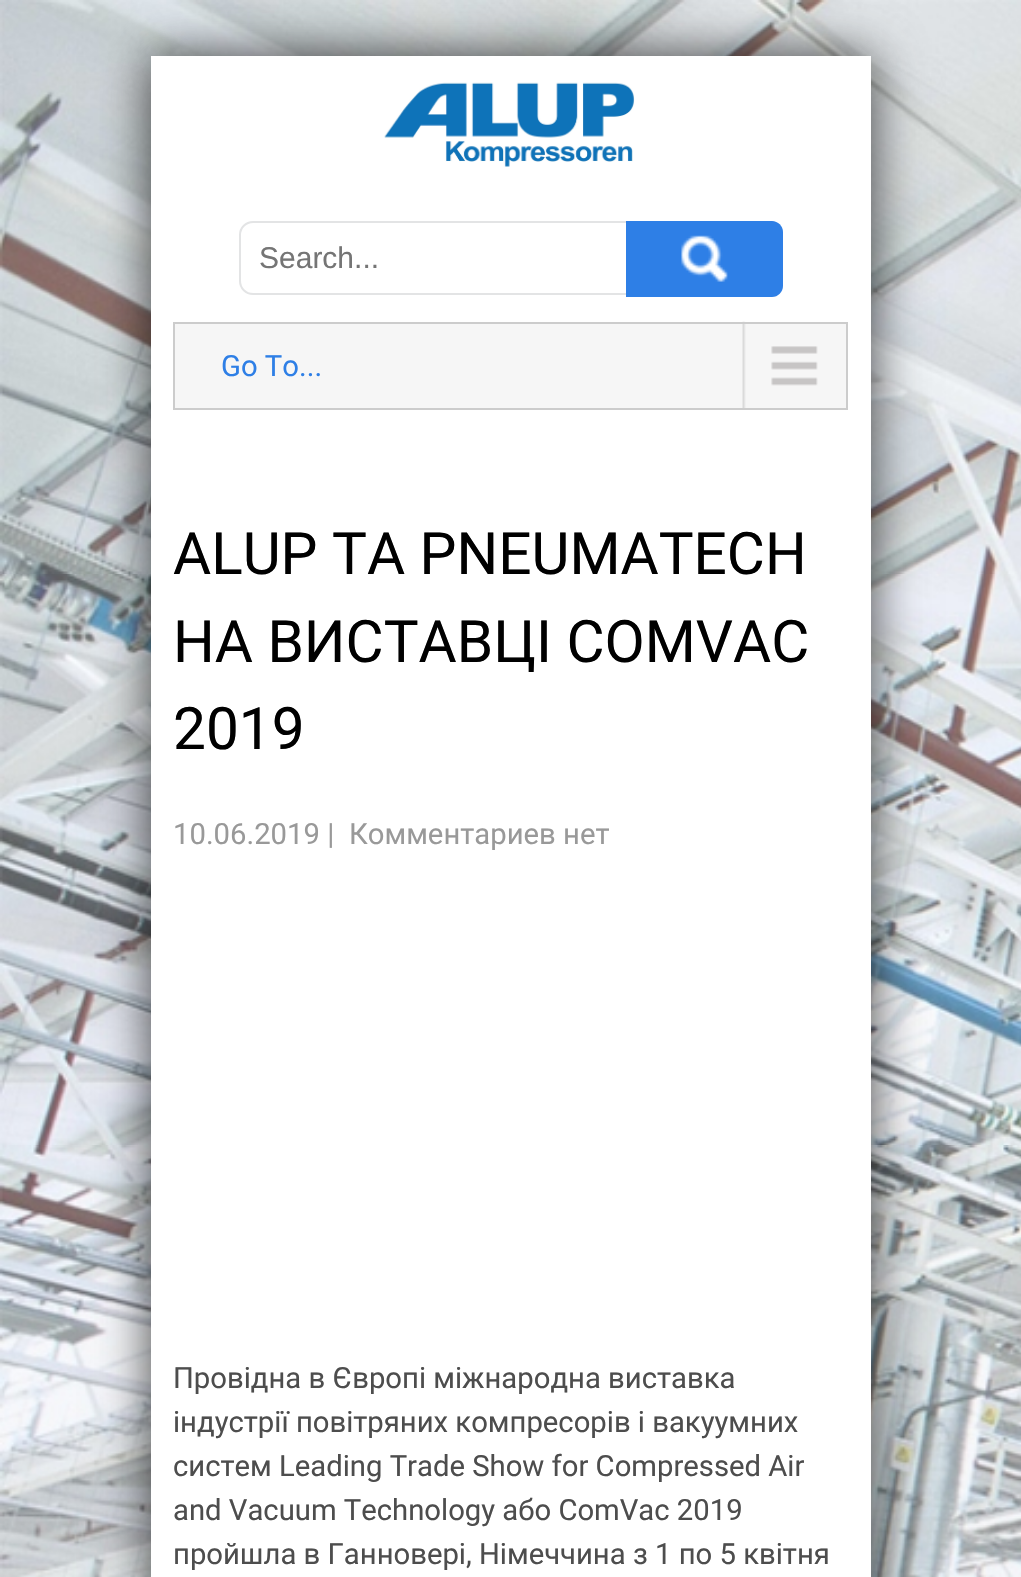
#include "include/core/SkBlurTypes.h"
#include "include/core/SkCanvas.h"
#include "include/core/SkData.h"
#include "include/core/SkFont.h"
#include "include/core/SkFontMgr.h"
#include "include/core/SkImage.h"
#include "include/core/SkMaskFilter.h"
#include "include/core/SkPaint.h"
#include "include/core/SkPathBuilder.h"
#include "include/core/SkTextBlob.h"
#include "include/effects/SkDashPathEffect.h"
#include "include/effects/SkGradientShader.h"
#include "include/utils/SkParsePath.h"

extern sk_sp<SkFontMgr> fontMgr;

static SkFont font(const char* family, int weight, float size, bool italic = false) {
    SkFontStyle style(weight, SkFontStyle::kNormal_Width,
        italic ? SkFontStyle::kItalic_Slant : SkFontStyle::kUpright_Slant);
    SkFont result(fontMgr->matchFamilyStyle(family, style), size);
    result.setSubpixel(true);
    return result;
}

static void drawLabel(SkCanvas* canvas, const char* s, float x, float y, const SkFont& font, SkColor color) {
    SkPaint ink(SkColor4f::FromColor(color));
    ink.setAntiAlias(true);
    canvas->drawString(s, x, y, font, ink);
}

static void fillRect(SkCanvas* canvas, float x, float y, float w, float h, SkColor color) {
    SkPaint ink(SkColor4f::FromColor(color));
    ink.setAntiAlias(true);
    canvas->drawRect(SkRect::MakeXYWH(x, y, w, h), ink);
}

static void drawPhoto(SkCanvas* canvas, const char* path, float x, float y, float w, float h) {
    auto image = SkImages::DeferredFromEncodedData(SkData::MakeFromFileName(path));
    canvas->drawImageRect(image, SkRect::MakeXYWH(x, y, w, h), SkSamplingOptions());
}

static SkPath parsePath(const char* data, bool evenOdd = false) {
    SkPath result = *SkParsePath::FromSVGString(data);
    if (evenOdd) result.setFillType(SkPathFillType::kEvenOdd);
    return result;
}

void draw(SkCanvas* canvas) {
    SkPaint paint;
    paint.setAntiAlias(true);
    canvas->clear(0xFFFFFFFF);
    drawPhoto(canvas, "assets/img1.png", 0, 0, 1021, 1577);
    paint.setColor(0xBF000000);
    paint.setMaskFilter(SkMaskFilter::MakeBlur(kNormal_SkBlurStyle, 25));
    canvas->drawRect(SkRect::MakeXYWH(151, 56, 720, 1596), paint);
    paint.setMaskFilter(nullptr);
    fillRect(canvas, 151, 56, 720, 1521, 0xFFFFFFFF);
    drawPhoto(canvas, "assets/img2.png", 384, 82, 251, 85);
    paint.setStroke(true);
    paint.setStrokeWidth(2);
    paint.setColor(0xFFE3E4E5);
    canvas->drawRoundRect(SkRect::MakeXYWH(240, 222, 542, 72), 13, 13, paint);
    SkFont font1 = font("Liberation Sans", 400, 30);
    drawLabel(canvas, "Search...", 259, 268, font1, 0xFF757575);
    paint.setStroke(false);
    paint.setColor(0xFF2E7FE6);
    canvas->drawPath(parsePath("M626 221H772C778 221 783 226 783 232V286C783 292 778 297 772 297H626Z"), paint);
    drawPhoto(canvas, "assets/img3.png", 681, 235, 47, 47);
    fillRect(canvas, 175, 324, 671, 84, 0xFFF6F6F6);
    drawPhoto(canvas, "assets/img4.png", 742, 321, 76, 87);
    paint.setStroke(true);
    paint.setColor(0xFFCCCCCC);
    canvas->drawRect(SkRect::MakeXYWH(174, 323, 673, 86), paint);
    SkFont font2 = font("Roboto", 400, 29.25f);
    drawLabel(canvas, "Go To...", 221, 376, font2, 0xFF2E7FE6);
    SkFont font3 = font("Roboto", 400, 58.5f);
    drawLabel(canvas, "ALUP ТА PNEUMATECH", 173, 574, font3, 0xFF000000);
    drawLabel(canvas, "НА ВИСТАВЦІ COMVAC", 173, 662, font3, 0xFF000000);
    drawLabel(canvas, "2019", 173, 749, font3, 0xFF000000);
    drawLabel(canvas, "10.06.2019 |", 173, 844, font2, 0xFF999999);
    drawLabel(canvas, "Комментариев нет", 349, 844, font2, 0xFF999999);
    drawLabel(canvas, "Провідна в Європі міжнародна виставка", 173, 1388, font2, 0xFF4D4D4D);
    drawLabel(canvas, "індустрії повітряних компресорів і вакуумних", 173, 1432, font2, 0xFF4D4D4D);
    drawLabel(canvas, "систем Leading Trade Show for Compressed Air", 173, 1476, font2, 0xFF4D4D4D);
    drawLabel(canvas, "and Vacuum Technology або ComVac 2019", 173, 1520, font2, 0xFF4D4D4D);
    drawLabel(canvas, "пройшла в Ганновері, Німеччина з 1 по 5 квітня", 173, 1564, font2, 0xFF4D4D4D);
}
